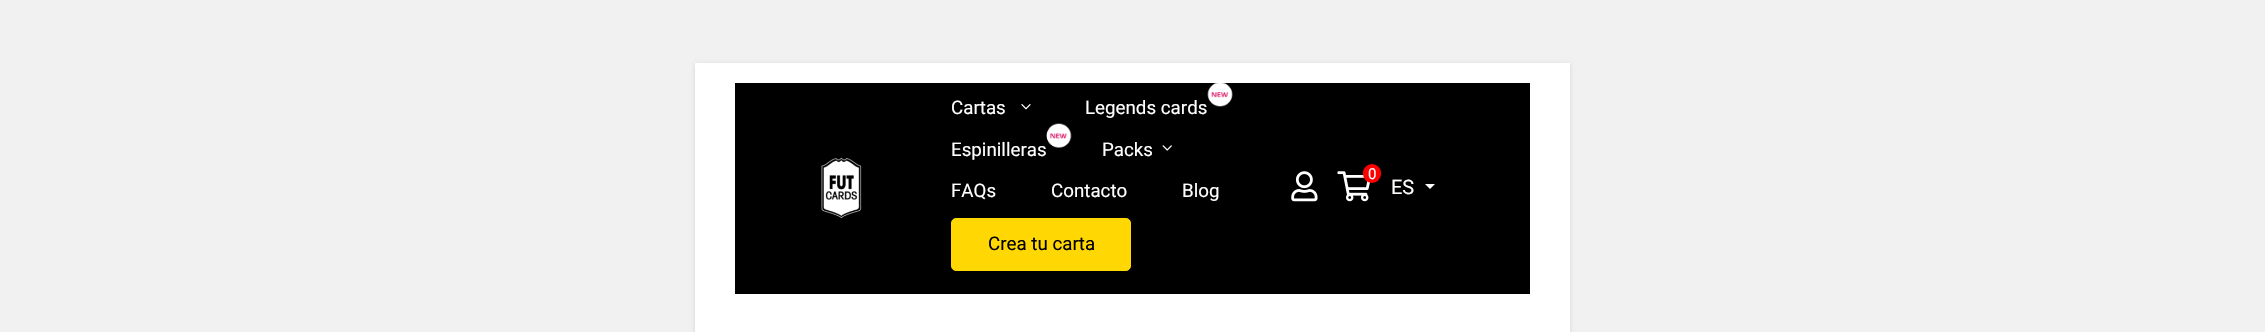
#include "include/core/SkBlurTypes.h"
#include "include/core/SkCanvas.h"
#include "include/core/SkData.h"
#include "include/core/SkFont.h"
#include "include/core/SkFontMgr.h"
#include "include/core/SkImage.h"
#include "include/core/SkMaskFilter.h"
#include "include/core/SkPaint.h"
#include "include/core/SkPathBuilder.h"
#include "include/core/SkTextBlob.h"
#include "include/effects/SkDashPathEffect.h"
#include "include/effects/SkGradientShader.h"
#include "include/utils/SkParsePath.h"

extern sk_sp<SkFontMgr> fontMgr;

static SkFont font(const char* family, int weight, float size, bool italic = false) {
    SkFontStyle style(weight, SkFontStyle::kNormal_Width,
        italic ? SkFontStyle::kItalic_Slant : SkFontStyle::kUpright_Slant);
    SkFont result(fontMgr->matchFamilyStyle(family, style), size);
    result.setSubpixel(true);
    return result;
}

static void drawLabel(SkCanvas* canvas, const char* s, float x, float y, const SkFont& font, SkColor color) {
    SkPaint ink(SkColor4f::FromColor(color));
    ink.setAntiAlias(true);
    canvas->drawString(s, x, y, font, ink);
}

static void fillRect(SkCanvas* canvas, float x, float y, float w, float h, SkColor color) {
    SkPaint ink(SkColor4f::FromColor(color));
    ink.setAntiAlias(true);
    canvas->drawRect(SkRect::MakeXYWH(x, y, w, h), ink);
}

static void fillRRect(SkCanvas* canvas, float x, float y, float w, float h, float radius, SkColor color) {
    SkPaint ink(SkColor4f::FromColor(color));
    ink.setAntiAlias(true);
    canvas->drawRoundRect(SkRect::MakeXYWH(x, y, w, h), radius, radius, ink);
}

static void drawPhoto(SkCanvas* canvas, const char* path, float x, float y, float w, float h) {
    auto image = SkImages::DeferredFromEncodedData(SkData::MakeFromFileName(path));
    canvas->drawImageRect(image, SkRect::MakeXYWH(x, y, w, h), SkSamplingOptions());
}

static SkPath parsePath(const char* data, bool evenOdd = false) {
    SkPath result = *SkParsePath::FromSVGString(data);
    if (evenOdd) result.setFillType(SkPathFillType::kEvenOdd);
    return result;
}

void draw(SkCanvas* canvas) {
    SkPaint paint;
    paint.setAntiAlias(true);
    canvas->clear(0xFFF1F1F1);
    paint.setColor(0x21000000);
    paint.setMaskFilter(SkMaskFilter::MakeBlur(kNormal_SkBlurStyle, 2));
    canvas->drawRect(SkRect::MakeXYWH(695, 64, 875, 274), paint);
    paint.setMaskFilter(nullptr);
    fillRect(canvas, 695, 63, 875, 269, 0xFFFFFFFF);
    fillRect(canvas, 735, 83, 795, 211, 0xFF000000);
    drawPhoto(canvas, "assets/img1.png", 821, 157, 41, 62);
    SkFont font1 = font("Roboto", 400, 18.75f);
    drawLabel(canvas, "Cartas", 951, 114, font1, 0xFFFFFFFF);
    drawPhoto(canvas, "assets/img2.png", 1021, 104, 10, 6);
    drawLabel(canvas, "Legends cards", 1085, 114, font1, 0xFFFFFFFF);
    drawPhoto(canvas, "assets/img3.png", 1207, 83, 26, 24);
    drawPhoto(canvas, "assets/img4.png", 1046, 123, 26, 25);
    drawLabel(canvas, "Espinilleras", 951, 156, font1, 0xFFFFFFFF);
    drawLabel(canvas, "Packs", 1102, 156, font1, 0xFFFFFFFF);
    drawPhoto(canvas, "assets/img5.png", 1162, 145, 10, 6);
    drawLabel(canvas, "FAQs", 951, 197, font1, 0xFFFFFFFF);
    drawLabel(canvas, "Contacto", 1051, 197, font1, 0xFFFFFFFF);
    drawLabel(canvas, "Blog", 1182, 197, font1, 0xFFFFFFFF);
    paint.setColor(0xFFFFD702);
    canvas->drawRoundRect(SkRect::MakeXYWH(951.5f, 218.5f, 179, 52), 4.5f, 4.5f, paint);
    paint.setStroke(true);
    paint.setStrokeWidth(1);
    canvas->drawRoundRect(SkRect::MakeXYWH(951.5f, 218.5f, 179, 52), 4.5f, 4.5f, paint);
    drawLabel(canvas, "Crea tu carta", 988, 250, font1, 0xFF000000);
    drawPhoto(canvas, "assets/img6.png", 1291, 171, 27, 31);
    drawPhoto(canvas, "assets/img7.png", 1337, 171, 33, 31);
    fillRRect(canvas, 1363, 164, 18, 19, 9, 0xFFFF0000);
    SkFont font2 = font("Roboto", 400, 15);
    drawLabel(canvas, "0", 1368, 179, font2, 0xFFFFFFFF);
    SkFont font3 = font("Roboto", 400, 20);
    drawLabel(canvas, "ES", 1391, 194, font3, 0xFFFFFFFF);
    paint.setStroke(false);
    paint.setColor(0xFFFFFFFF);
    canvas->drawPath(parsePath("M1425 184H1435L1430 189Z"), paint);
}
